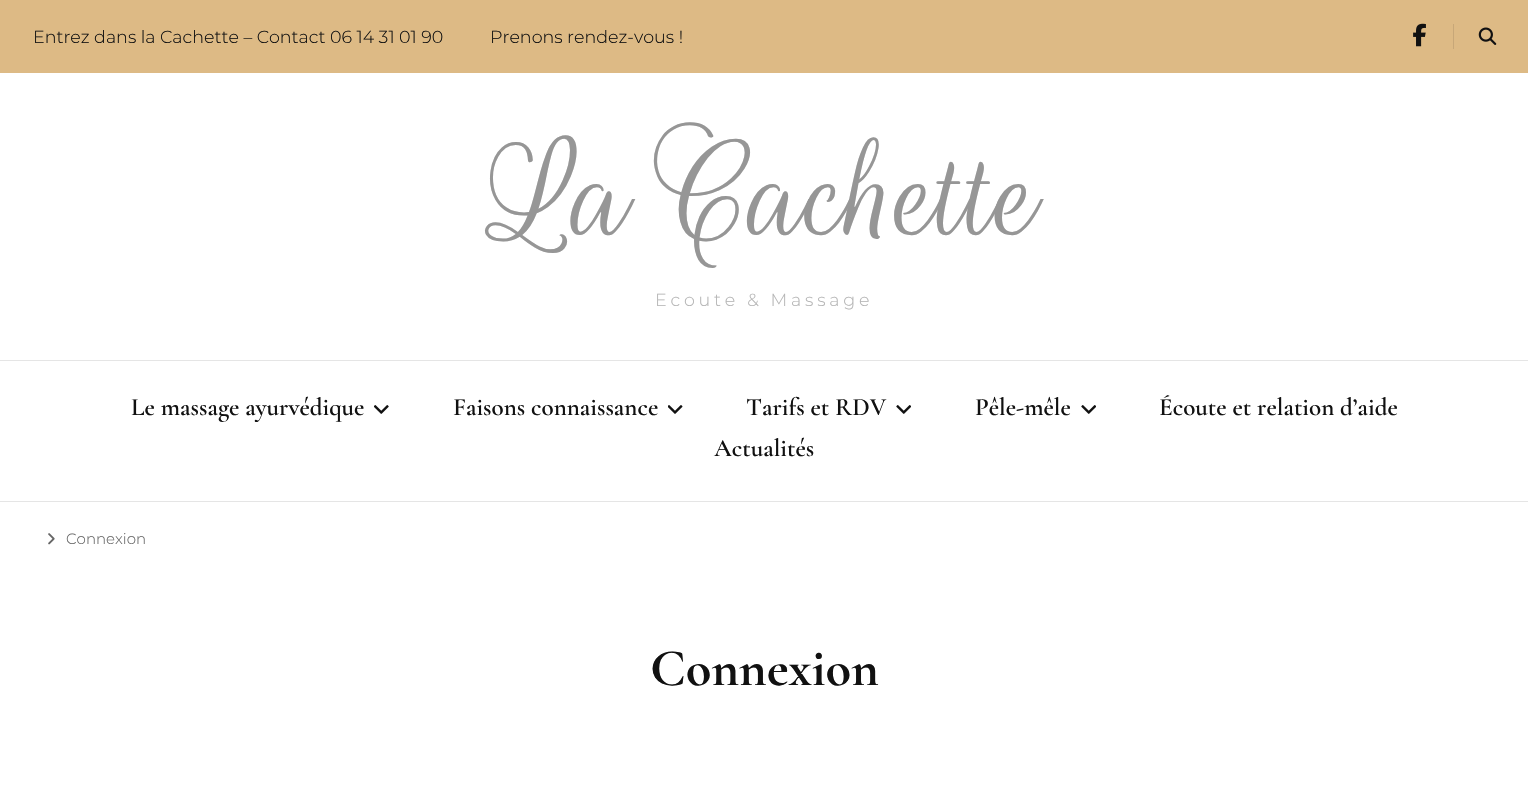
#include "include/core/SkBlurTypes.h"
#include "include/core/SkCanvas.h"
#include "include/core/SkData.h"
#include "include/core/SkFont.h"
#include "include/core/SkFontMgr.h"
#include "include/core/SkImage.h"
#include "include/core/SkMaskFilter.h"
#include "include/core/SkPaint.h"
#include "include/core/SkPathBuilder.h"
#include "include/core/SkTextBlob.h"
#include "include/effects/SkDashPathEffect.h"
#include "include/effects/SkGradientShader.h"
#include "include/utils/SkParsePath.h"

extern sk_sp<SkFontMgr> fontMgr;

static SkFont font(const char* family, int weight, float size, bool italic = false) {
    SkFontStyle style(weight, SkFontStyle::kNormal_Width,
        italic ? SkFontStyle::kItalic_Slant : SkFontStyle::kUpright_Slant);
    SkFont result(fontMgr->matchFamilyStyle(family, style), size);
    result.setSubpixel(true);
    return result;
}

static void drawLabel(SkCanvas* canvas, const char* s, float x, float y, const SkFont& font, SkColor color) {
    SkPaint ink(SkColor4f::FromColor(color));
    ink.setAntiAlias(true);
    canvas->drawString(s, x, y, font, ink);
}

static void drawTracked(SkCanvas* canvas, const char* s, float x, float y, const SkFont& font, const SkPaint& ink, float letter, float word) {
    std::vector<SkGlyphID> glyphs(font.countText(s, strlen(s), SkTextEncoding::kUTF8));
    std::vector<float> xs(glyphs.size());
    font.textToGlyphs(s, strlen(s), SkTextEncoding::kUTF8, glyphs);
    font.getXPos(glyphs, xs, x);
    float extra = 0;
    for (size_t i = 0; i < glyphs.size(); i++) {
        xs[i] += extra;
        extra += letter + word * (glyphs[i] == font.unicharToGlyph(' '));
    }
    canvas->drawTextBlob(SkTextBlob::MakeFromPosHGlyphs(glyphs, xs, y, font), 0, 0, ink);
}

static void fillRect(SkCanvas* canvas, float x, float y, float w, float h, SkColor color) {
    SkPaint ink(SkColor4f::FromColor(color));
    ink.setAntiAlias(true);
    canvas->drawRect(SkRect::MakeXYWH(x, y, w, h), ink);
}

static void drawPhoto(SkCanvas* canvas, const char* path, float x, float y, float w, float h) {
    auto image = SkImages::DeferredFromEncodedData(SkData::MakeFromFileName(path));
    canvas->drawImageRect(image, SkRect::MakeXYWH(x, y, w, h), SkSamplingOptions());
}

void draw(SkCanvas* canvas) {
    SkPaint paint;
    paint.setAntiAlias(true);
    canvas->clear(0xFFFFFFFF);
    fillRect(canvas, 0, 0, 1528, 73, 0xFFDDBA85);
    SkFont font1 = font("Montserrat", 300, 17.5f);
    drawLabel(canvas, "Entrez dans la Cachette – Contact 06 14 31 01 90", 33, 43, font1, 0xFF111111);
    drawLabel(canvas, "Prenons rendez-vous !", 490, 43, font1, 0xFF111111);
    drawPhoto(canvas, "assets/img1.png", 1413, 23, 13, 24);
    fillRect(canvas, 1453, 24, 1, 25, 0xFFC7A778);
    drawPhoto(canvas, "assets/img2.png", 1478, 27, 19, 18);
    SkFont font2 = font("Rouge Script", 400, 150);
    drawLabel(canvas, "La Cachette", 489, 235, font2, 0xFF969696);
    paint.setColor(0xFFB5B5B5);
    drawTracked(canvas, "Ecoute & Massage", 655, 306, font1, paint, 3.75f, 0);
    fillRect(canvas, 0, 360, 1528, 1, 0xFFE5E5E5);
    fillRect(canvas, 0, 501, 1528, 1, 0xFFE5E5E5);
    SkFont font3 = font("Cormorant Garamond", 600, 25);
    drawLabel(canvas, "Le massage ayurvédique", 131, 415, font3, 0xFF111111);
    drawPhoto(canvas, "assets/img3.png", 374, 405, 15, 9);
    drawLabel(canvas, "Faisons connaissance", 453, 415, font3, 0xFF111111);
    drawPhoto(canvas, "assets/img4.png", 668, 405, 15, 9);
    drawLabel(canvas, "Tarifs et RDV", 746, 415, font3, 0xFF111111);
    drawPhoto(canvas, "assets/img5.png", 896, 405, 15, 9);
    drawLabel(canvas, "Pêle-mêle", 975, 415, font3, 0xFF111111);
    drawPhoto(canvas, "assets/img5.png", 1081, 405, 15, 9);
    drawLabel(canvas, "Écoute et relation d’aide", 1159, 415, font3, 0xFF111111);
    drawLabel(canvas, "Actualités", 714, 456, font3, 0xFF111111);
    drawPhoto(canvas, "assets/img6.png", 48, 533, 7, 12);
    SkFont font4 = font("Montserrat", 300, 15);
    drawLabel(canvas, "Connexion", 66, 544, font4, 0xFF666666);
    SkFont font5 = font("Cormorant Garamond", 700, 52.5f);
    drawLabel(canvas, "Connexion", 650, 685, font5, 0xFF111111);
}
